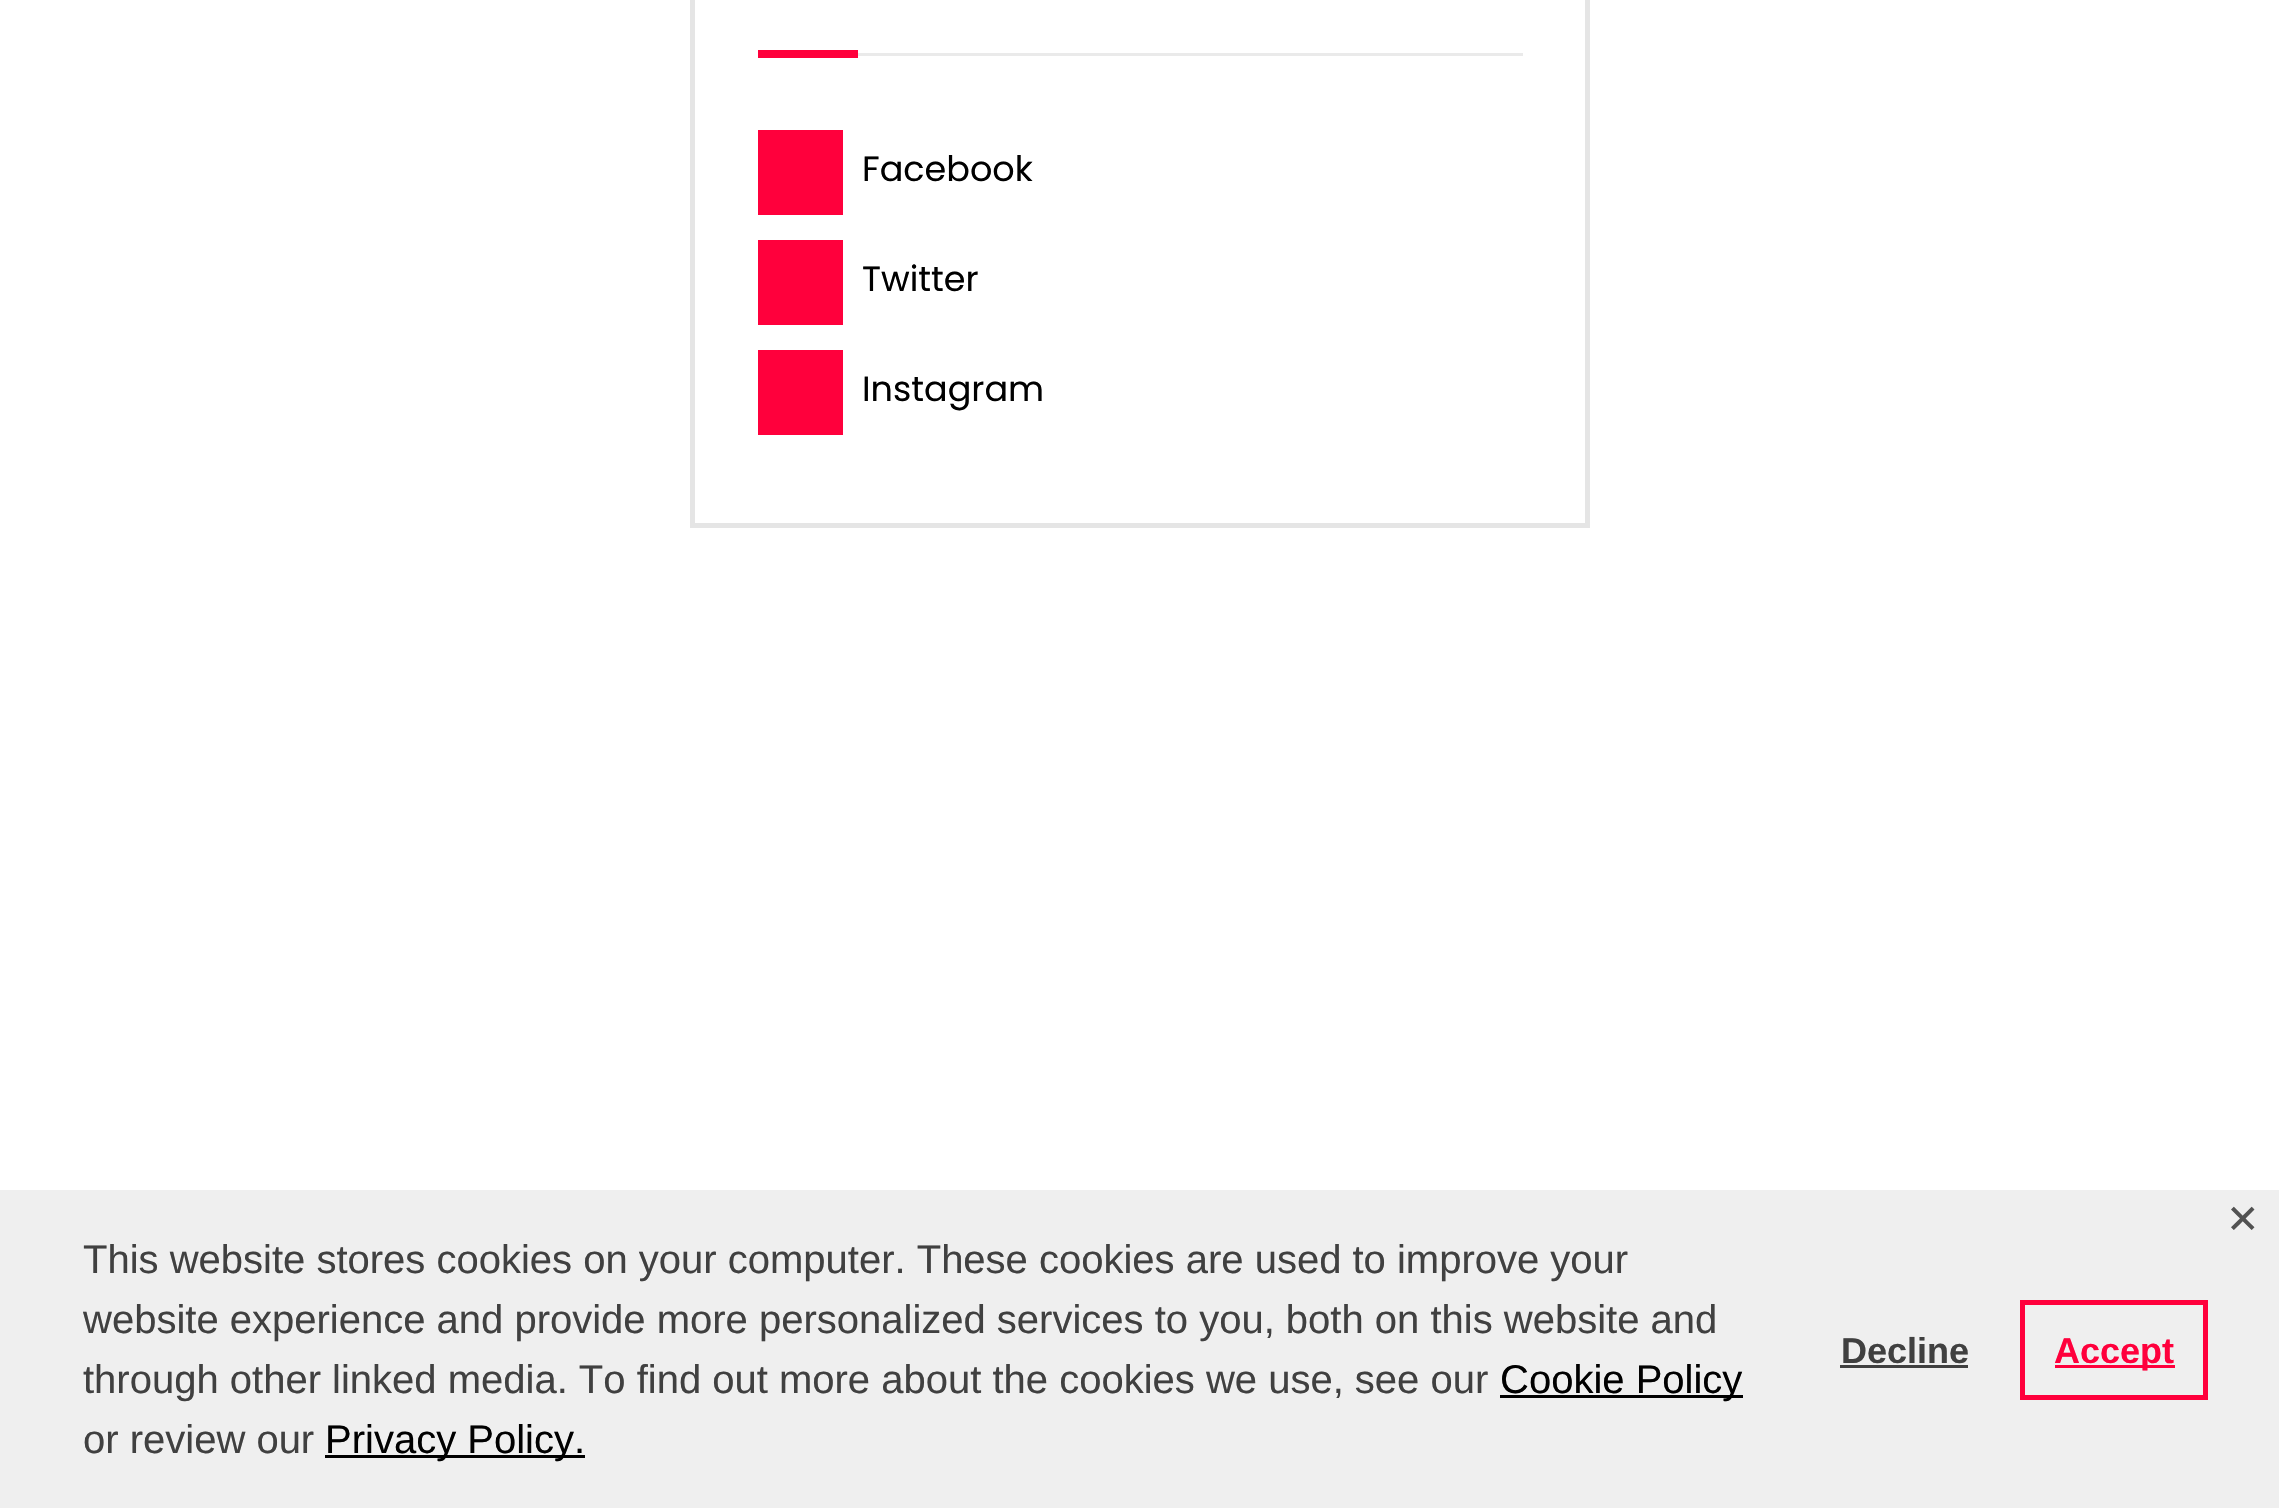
#include "include/core/SkBlurTypes.h"
#include "include/core/SkCanvas.h"
#include "include/core/SkData.h"
#include "include/core/SkFont.h"
#include "include/core/SkFontMgr.h"
#include "include/core/SkImage.h"
#include "include/core/SkMaskFilter.h"
#include "include/core/SkPaint.h"
#include "include/core/SkPathBuilder.h"
#include "include/core/SkTextBlob.h"
#include "include/effects/SkDashPathEffect.h"
#include "include/effects/SkGradientShader.h"
#include "include/utils/SkParsePath.h"

extern sk_sp<SkFontMgr> fontMgr;

static SkFont font(const char* family, int weight, float size, bool italic = false) {
    SkFontStyle style(weight, SkFontStyle::kNormal_Width,
        italic ? SkFontStyle::kItalic_Slant : SkFontStyle::kUpright_Slant);
    SkFont result(fontMgr->matchFamilyStyle(family, style), size);
    result.setSubpixel(true);
    return result;
}

static void drawLabel(SkCanvas* canvas, const char* s, float x, float y, const SkFont& font, SkColor color) {
    SkPaint ink(SkColor4f::FromColor(color));
    ink.setAntiAlias(true);
    canvas->drawString(s, x, y, font, ink);
}

static void fillRect(SkCanvas* canvas, float x, float y, float w, float h, SkColor color) {
    SkPaint ink(SkColor4f::FromColor(color));
    ink.setAntiAlias(true);
    canvas->drawRect(SkRect::MakeXYWH(x, y, w, h), ink);
}

void draw(SkCanvas* canvas) {
    SkPaint paint;
    paint.setAntiAlias(true);
    canvas->clear(0xFFFFFFFF);
    paint.setStroke(true);
    paint.setStrokeWidth(5);
    paint.setColor(0xFFE5E5E5);
    canvas->drawRect(SkRect::MakeXYWH(692.5f, -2.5f, 895, 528), paint);
    fillRect(canvas, 758, 50, 100, 8, 0xFFFF003C);
    fillRect(canvas, 858, 53, 665, 3, 0xFFEAEAEA);
    fillRect(canvas, 758, 130, 85, 85, 0xFFFF003C);
    SkFont font1 = font("Poppins", 400, 35);
    drawLabel(canvas, "Facebook", 862, 181, font1, 0xFF000000);
    fillRect(canvas, 758, 240, 85, 85, 0xFFFF003C);
    drawLabel(canvas, "Twitter", 862, 291, font1, 0xFF000000);
    fillRect(canvas, 758, 350, 85, 85, 0xFFFF003C);
    drawLabel(canvas, "Instagram", 862, 401, font1, 0xFF000000);
    fillRect(canvas, 0, 1190, 2279, 318, 0xFFEFEFEF);
    SkFont font2 = font("DejaVu Sans", 400, 40);
    drawLabel(canvas, "✕", 2226, 1233, font2, 0xFF525252);
    SkFont font3 = font("Liberation Sans", 400, 40);
    drawLabel(canvas, "This website stores cookies on your computer. These cookies are used to improve your", 83, 1273, font3, 0xFF404040);
    drawLabel(canvas, "website experience and provide more personalized services to you, both on this website and", 83, 1333, font3, 0xFF404040);
    drawLabel(canvas, "through other linked media. To find out more about the cookies we use, see our", 83, 1393, font3, 0xFF404040);
    fillRect(canvas, 1500, 1395, 243, 3, 0xFF000000);
    drawLabel(canvas, "Cookie Policy", 1500, 1393, font3, 0xFF000000);
    drawLabel(canvas, "or review our", 83, 1453, font3, 0xFF404040);
    fillRect(canvas, 325, 1455, 260, 3, 0xFF000000);
    drawLabel(canvas, "Privacy Policy.", 325, 1453, font3, 0xFF000000);
    SkFont font4 = font("Liberation Sans", 700, 36);
    drawLabel(canvas, "Decline", 1841, 1363, font4, 0xFF404040);
    fillRect(canvas, 1840, 1365, 128, 3, 0xFF404040);
    paint.setColor(0xFFFF003C);
    canvas->drawRect(SkRect::MakeXYWH(2022.5f, 1302.5f, 183, 95), paint);
    fillRect(canvas, 2055, 1365, 120, 3, 0xFFFF003C);
    drawLabel(canvas, "Accept", 2054, 1363, font4, 0xFFFF003C);
}
